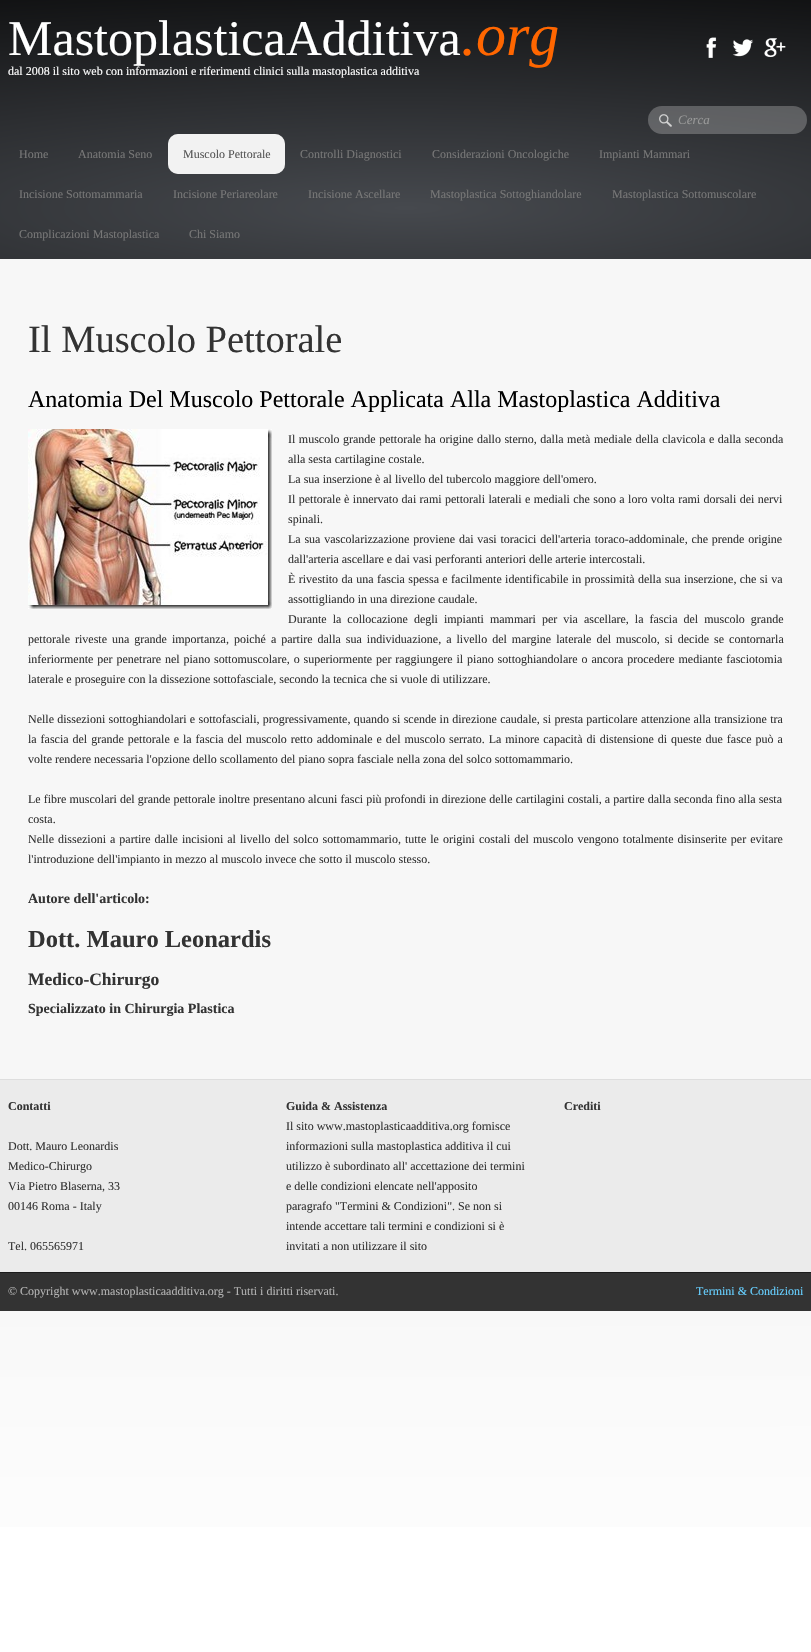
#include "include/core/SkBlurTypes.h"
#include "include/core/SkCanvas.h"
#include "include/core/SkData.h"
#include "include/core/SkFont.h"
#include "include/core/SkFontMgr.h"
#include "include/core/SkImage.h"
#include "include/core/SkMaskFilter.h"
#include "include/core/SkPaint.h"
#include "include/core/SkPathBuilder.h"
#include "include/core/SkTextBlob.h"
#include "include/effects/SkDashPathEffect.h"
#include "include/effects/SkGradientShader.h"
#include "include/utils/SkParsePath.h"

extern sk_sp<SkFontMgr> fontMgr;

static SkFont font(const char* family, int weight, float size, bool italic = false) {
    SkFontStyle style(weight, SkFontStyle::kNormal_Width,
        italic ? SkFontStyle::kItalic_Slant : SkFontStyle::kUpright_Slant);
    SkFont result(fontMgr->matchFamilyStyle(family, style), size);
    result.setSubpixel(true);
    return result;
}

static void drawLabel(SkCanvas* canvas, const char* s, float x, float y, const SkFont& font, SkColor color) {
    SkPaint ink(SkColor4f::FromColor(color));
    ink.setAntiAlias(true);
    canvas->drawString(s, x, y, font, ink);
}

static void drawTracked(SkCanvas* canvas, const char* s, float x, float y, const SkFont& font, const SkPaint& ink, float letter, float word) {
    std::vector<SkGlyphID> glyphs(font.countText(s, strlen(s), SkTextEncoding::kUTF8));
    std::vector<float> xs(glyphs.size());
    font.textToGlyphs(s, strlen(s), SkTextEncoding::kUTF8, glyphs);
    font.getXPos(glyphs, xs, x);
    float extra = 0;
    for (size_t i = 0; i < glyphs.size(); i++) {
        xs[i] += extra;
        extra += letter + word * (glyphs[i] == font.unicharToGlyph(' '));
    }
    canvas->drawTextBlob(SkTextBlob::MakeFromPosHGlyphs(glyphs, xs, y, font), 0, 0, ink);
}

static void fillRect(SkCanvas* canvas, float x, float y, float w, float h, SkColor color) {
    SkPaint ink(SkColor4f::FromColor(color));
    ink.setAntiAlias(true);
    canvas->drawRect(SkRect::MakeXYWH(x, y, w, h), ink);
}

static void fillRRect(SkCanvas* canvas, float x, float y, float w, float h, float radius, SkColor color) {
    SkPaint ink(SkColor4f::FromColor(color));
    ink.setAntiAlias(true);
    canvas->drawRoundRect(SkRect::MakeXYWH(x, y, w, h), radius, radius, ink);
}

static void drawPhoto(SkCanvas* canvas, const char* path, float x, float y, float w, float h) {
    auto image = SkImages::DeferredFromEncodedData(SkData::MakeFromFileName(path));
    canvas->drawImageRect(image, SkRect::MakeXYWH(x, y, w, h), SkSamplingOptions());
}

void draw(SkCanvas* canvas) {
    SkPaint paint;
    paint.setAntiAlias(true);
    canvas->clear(0xFFFFFFFF);
    {
        const SkColor colors[] = {0xFFDEDEDE, 0xFFFFFFFF};
        const float stops[] = {0, 1};
        const SkPoint ends[] = {{405, 0}, {406, 1652}};
        paint.setShader(SkGradientShader::MakeLinear(ends, colors, stops, 2, SkTileMode::kClamp));
        paint.setAlpha(255);
    }
    canvas->drawRect(SkRect::MakeXYWH(0, 1311, 811, 216), paint);
    {
        const SkColor colors[] = {0xFF46494E, 0xFF000000};
        const float stops[] = {0, 1};
        SkMatrix m = SkMatrix::Translate(406, 208).preScale(1720, 294);
        paint.setShader(SkGradientShader::MakeRadial({0, 0}, 1, colors, stops, 2, SkTileMode::kClamp, 0, &m));
        paint.setAlpha(255);
    }
    canvas->drawRect(SkRect::MakeXYWH(0, 0, 811, 259), paint);
    SkFont font1 = font("Liberation Serif", 400, 50);
    drawLabel(canvas, "MastoplasticaAdditiva", 8, 55, font1, 0xFFFFFFFF);
    SkFont font2 = font("Liberation Serif", 400, 60, true);
    drawLabel(canvas, ".org", 461, 55, font2, 0xFFFF6600);
    SkFont font3 = font("Liberation Serif", 400, 12);
    drawLabel(canvas, "dal 2008 il sito web con informazioni e riferimenti clinici sulla mastoplastica additiva", 8, 75, font3, 0xFFFFFFFF);
    drawPhoto(canvas, "assets/img1.png", 706, 37, 11, 21);
    drawPhoto(canvas, "assets/img2.png", 732, 39, 22, 18);
    drawPhoto(canvas, "assets/img3.png", 764, 38, 22, 20);
    fillRRect(canvas, 648, 106, 159, 28, 14, 0x3DFFFFFF);
    drawPhoto(canvas, "assets/img4.png", 659, 114, 13, 13);
    SkFont font4 = font("Liberation Serif", 400, 13, true);
    drawLabel(canvas, "Cerca", 678, 124, font4, 0xFF999999);
    drawLabel(canvas, "Home", 19, 158, font3, 0xFF777777);
    drawLabel(canvas, "Anatomia Seno", 78, 158, font3, 0xFF777777);
    fillRRect(canvas, 168, 134, 117, 40, 10, 0xFFE5E5E5);
    fillRRect(canvas, 168, 134, 117, 40, 10, 0x80FFFFFF);
    drawLabel(canvas, "Muscolo Pettorale", 183, 158, font3, 0xFF555555);
    drawLabel(canvas, "Controlli Diagnostici", 300, 158, font3, 0xFF777777);
    drawLabel(canvas, "Considerazioni Oncologiche", 432, 158, font3, 0xFF777777);
    drawLabel(canvas, "Impianti Mammari", 599, 158, font3, 0xFF777777);
    drawLabel(canvas, "Incisione Sottomammaria", 19, 198, font3, 0xFF777777);
    drawLabel(canvas, "Incisione Periareolare", 173, 198, font3, 0xFF777777);
    drawLabel(canvas, "Incisione Ascellare", 308, 198, font3, 0xFF777777);
    drawLabel(canvas, "Mastoplastica Sottoghiandolare", 430, 198, font3, 0xFF777777);
    drawLabel(canvas, "Mastoplastica Sottomuscolare", 612, 198, font3, 0xFF777777);
    drawLabel(canvas, "Complicazioni Mastoplastica", 19, 238, font3, 0xFF777777);
    drawLabel(canvas, "Chi Siamo", 189, 238, font3, 0xFF777777);
    fillRect(canvas, 0, 259, 811, 820, 0xFFF7F7F7);
    SkFont font5 = font("Liberation Serif", 400, 38.5f);
    drawLabel(canvas, "Il Muscolo Pettorale", 28, 352, font5, 0xFF333333);
    SkFont font6 = font("Liberation Serif", 400, 24);
    drawLabel(canvas, "Anatomia Del Muscolo Pettorale Applicata Alla Mastoplastica Additiva", 28, 407, font6, 0xFF000000);
    drawPhoto(canvas, "assets/img5.png", 28, 429, 244, 180);
    paint.setShader(nullptr);
    paint.setColor(0xFF333333);
    drawTracked(canvas, "Il muscolo grande pettorale ha origine dallo sterno, dalla metà mediale della clavicola e dalla seconda", 288, 443, font3, paint, 0, 0.5f);
    drawLabel(canvas, "alla sesta cartilagine costale.", 288, 463, font3, 0xFF333333);
    drawLabel(canvas, "La sua inserzione è al livello del tubercolo maggiore dell'omero.", 288, 483, font3, 0xFF333333);
    drawTracked(canvas, "Il pettorale è innervato dai rami pettorali laterali e mediali che sono a loro volta rami dorsali dei nervi", 288, 503, font3, paint, 0, 0.4f);
    drawLabel(canvas, "spinali.", 288, 523, font3, 0xFF333333);
    drawTracked(canvas, "La sua vascolarizzazione proviene dai vasi toracici dell'arteria toraco-addominale, che prende origine", 288, 543, font3, paint, 0, 0.75f);
    drawLabel(canvas, "dall'arteria ascellare e dai vasi perforanti anteriori delle arterie intercostali.", 288, 563, font3, 0xFF333333);
    drawTracked(canvas, "È rivestito da una fascia spessa e facilmente identificabile in prossimità della sua inserzione, che si va", 288, 583, font3, paint, 0, 0.4f);
    drawLabel(canvas, "assottigliando in una direzione caudale.", 288, 603, font3, 0xFF333333);
    drawTracked(canvas, "Durante la collocazione degli impianti mammari per via ascellare, la fascia del muscolo grande", 288, 623, font3, paint, 0, 3);
    drawTracked(canvas, "pettorale riveste una grande importanza, poiché a partire dalla sua individuazione, a livello del margine laterale del muscolo, si decide se contornarla", 28, 643, font3, paint, 0, 2);
    drawTracked(canvas, "inferiormente per penetrare nel piano sottomuscolare, o superiormente per raggiungere il piano sottoghiandolare o ancora procedere mediante fasciotomia", 28, 663, font3, paint, 0, 0.9f);
    drawLabel(canvas, "laterale e proseguire con la dissezione sottofasciale, secondo la tecnica che si vuole di utilizzare.", 28, 683, font3, 0xFF333333);
    drawTracked(canvas, "Nelle dissezioni sottoghiandolari e sottofasciali, progressivamente, quando si scende in direzione caudale, si presta particolare attenzione alla transizione tra", 28, 723, font3, paint, 0, 0.3f);
    drawTracked(canvas, "la fascia del grande pettorale e la fascia del muscolo retto addominale e del muscolo serrato. La minore capacità di distensione di queste due fasce può a", 28, 743, font3, paint, 0, 0.95f);
    drawLabel(canvas, "volte rendere necessaria l'opzione dello scollamento del piano sopra fasciale nella zona del solco sottomammario.", 28, 763, font3, 0xFF333333);
    drawTracked(canvas, "Le fibre muscolari del grande pettorale inoltre presentano alcuni fasci più profondi in direzione delle cartilagini costali, a partire dalla seconda fino alla sesta", 28, 803, font3, paint, 0, 0.1f);
    drawLabel(canvas, "costa.", 28, 823, font3, 0xFF333333);
    drawTracked(canvas, "Nelle dissezioni a partire dalle incisioni al livello del solco sottomammario, tutte le origini costali del muscolo vengono totalmente disinserite per evitare", 28, 843, font3, paint, 0, 1);
    drawLabel(canvas, "l'introduzione dell'impianto in mezzo al muscolo invece che sotto il muscolo stesso.", 28, 863, font3, 0xFF333333);
    SkFont font7 = font("Liberation Serif", 700, 14);
    drawLabel(canvas, "Autore dell'articolo:", 28, 903, font7, 0xFF333333);
    SkFont font8 = font("Liberation Serif", 700, 24.5f);
    drawLabel(canvas, "Dott. Mauro Leonardis", 28, 947, font8, 0xFF333333);
    SkFont font9 = font("Liberation Serif", 700, 17.5f);
    drawLabel(canvas, "Medico-Chirurgo", 28, 985, font9, 0xFF333333);
    drawLabel(canvas, "Specializzato in Chirurgia Plastica", 28, 1013, font7, 0xFF333333);
    fillRect(canvas, 0, 1080, 811, 192, 0xFFEBEBEB);
    fillRect(canvas, 0, 1079, 811, 1, 0xFFDEDEDE);
    SkFont font10 = font("Liberation Serif", 700, 12);
    drawLabel(canvas, "Contatti", 8, 1110, font10, 0xFF333333);
    drawLabel(canvas, "Dott. Mauro Leonardis", 8, 1150, font3, 0xFF333333);
    drawLabel(canvas, "Medico-Chirurgo", 8, 1170, font3, 0xFF333333);
    drawLabel(canvas, "Via Pietro Blaserna, 33", 8, 1190, font3, 0xFF333333);
    drawLabel(canvas, "00146 Roma - Italy", 8, 1210, font3, 0xFF333333);
    drawLabel(canvas, "Tel. 065565971", 8, 1250, font3, 0xFF333333);
    drawLabel(canvas, "Guida & Assistenza", 286, 1110, font10, 0xFF333333);
    drawLabel(canvas, "Il sito www.mastoplasticaadditiva.org fornisce", 286, 1130, font3, 0xFF333333);
    drawLabel(canvas, "informazioni sulla mastoplastica additiva il cui", 286, 1150, font3, 0xFF333333);
    drawLabel(canvas, "utilizzo è subordinato all' accettazione dei termini", 286, 1170, font3, 0xFF333333);
    drawLabel(canvas, "e delle condizioni elencate nell'apposito", 286, 1190, font3, 0xFF333333);
    drawLabel(canvas, "paragrafo \"Termini & Condizioni\". Se non si", 286, 1210, font3, 0xFF333333);
    drawLabel(canvas, "intende accettare tali termini e condizioni si è", 286, 1230, font3, 0xFF333333);
    drawLabel(canvas, "invitati a non utilizzare il sito", 286, 1250, font3, 0xFF333333);
    drawLabel(canvas, "Crediti", 564, 1110, font10, 0xFF333333);
    fillRect(canvas, 0, 1273, 811, 38, 0xFF333333);
    fillRect(canvas, 0, 1272, 811, 1, 0xFF1C1C1C);
    drawLabel(canvas, "© Copyright www.mastoplasticaadditiva.org - Tutti i diritti riservati.", 8, 1295, font3, 0xFFB3B3B3);
    drawLabel(canvas, "Termini & Condizioni", 696, 1295, font3, 0xFF66CFFF);
}
